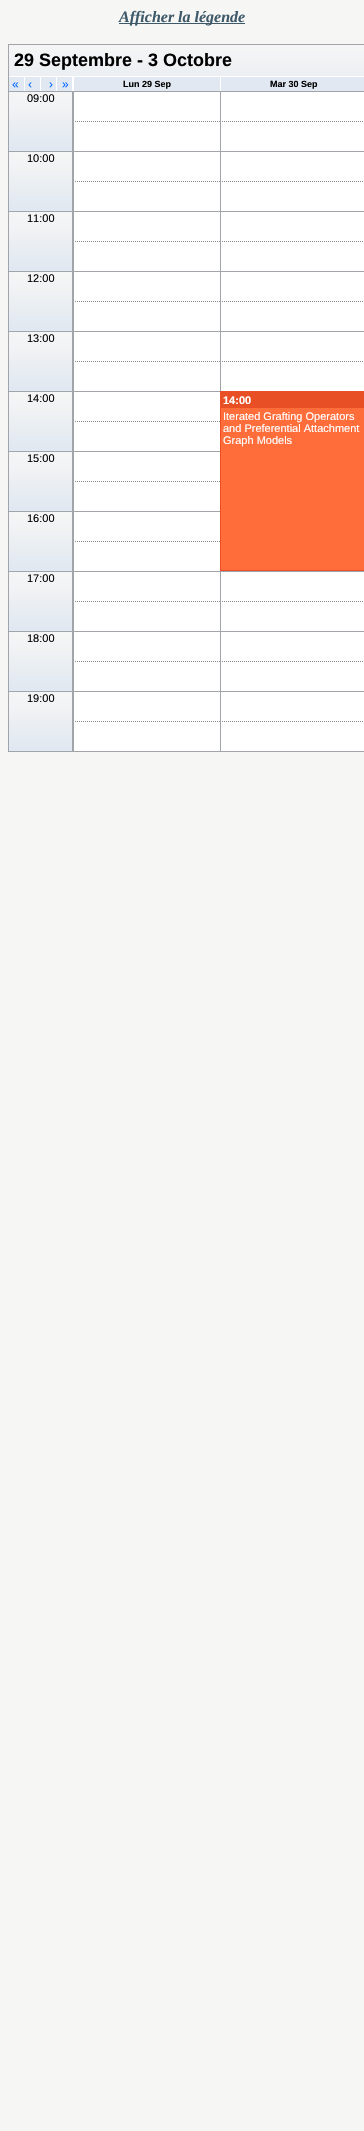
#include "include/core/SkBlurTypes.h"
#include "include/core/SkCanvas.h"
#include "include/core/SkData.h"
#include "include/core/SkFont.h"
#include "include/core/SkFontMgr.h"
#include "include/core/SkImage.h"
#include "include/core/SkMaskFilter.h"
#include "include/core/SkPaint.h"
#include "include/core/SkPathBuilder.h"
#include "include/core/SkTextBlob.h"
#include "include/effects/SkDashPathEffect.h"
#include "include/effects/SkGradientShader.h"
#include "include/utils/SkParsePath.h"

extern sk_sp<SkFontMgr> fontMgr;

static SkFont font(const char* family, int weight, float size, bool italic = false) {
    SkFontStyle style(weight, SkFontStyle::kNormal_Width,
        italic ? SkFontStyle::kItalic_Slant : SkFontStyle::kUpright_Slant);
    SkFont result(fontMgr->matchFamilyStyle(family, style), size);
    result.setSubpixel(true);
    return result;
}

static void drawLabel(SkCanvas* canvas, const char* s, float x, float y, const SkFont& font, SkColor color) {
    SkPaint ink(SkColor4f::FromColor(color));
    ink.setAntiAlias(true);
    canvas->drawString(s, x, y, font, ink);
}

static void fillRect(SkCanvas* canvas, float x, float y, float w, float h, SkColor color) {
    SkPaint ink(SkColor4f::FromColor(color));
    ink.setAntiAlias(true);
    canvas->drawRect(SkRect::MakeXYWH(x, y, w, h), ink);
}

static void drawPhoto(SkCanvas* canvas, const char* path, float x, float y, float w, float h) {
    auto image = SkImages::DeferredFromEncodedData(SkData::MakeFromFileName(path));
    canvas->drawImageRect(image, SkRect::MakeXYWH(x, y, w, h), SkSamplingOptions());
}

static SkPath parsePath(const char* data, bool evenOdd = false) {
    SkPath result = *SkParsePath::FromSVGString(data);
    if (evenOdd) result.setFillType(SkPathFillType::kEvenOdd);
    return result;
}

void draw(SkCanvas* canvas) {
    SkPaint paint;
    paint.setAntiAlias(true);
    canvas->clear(0xFFF6F6F5);
    fillRect(canvas, 119, 23, 126, 1, 0xFF3E5969);
    SkFont font1 = font("Liberation Serif", 700, 16, true);
    drawLabel(canvas, "Afficher la légende", 119, 22, font1, 0xFF3E5969);
    fillRect(canvas, 72, 76, 292, 675, 0xFFFFFFFF);
    paint.setStroke(true);
    paint.setStrokeWidth(1);
    paint.setColor(0xFFA1A5A9);
    canvas->drawRect(SkRect::MakeXYWH(8.5f, 44.5f, 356, 707), paint);
    drawPhoto(canvas, "assets/img1.png", 9, 45, 355, 31);
    SkFont font2 = font("Liberation Sans", 700, 18);
    drawLabel(canvas, "29 Septembre - 3 Octobre", 14, 66, font2, 0xFF000000);
    fillRect(canvas, 9, 77, 15, 14, 0xFFE1E8F1);
    fillRect(canvas, 9, 76, 63, 1, 0xFFFFFFFF);
    SkFont font3 = font("Liberation Sans", 400, 12);
    drawLabel(canvas, "«", 12, 88, font3, 0xFF0066FF);
    fillRect(canvas, 25, 77, 15, 14, 0xFFE1E8F1);
    fillRect(canvas, 24, 76, 1, 15, 0xFFFFFFFF);
    drawLabel(canvas, "‹", 28, 88, font3, 0xFF0066FF);
    fillRect(canvas, 41, 77, 15, 14, 0xFFE1E8F1);
    fillRect(canvas, 40, 76, 1, 15, 0xFFFFFFFF);
    drawLabel(canvas, "›", 49, 88, font3, 0xFF0066FF);
    fillRect(canvas, 57, 77, 15, 14, 0xFFE1E8F1);
    fillRect(canvas, 56, 76, 1, 15, 0xFFFFFFFF);
    drawLabel(canvas, "»", 62, 88, font3, 0xFF0066FF);
    fillRect(canvas, 74, 77, 146, 14, 0xFFE1E8F1);
    SkFont font4 = font("Liberation Sans", 700, 9);
    drawLabel(canvas, "Lun 29 Sep", 123, 87, font4, 0xFF000000);
    fillRect(canvas, 221, 77, 143, 14, 0xFFE1E8F1);
    drawLabel(canvas, "Mar 30 Sep", 270, 87, font4, 0xFF000000);
    fillRect(canvas, 72, 91, 1, 660, 0xFFA1A5A9);
    fillRect(canvas, 73, 91, 291, 1, 0xFFA1A5A9);
    fillRect(canvas, 73, 91, 1, 30, 0xFFA1A5A9);
    drawPhoto(canvas, "assets/img2.png", 9, 92, 63, 59);
    fillRect(canvas, 9, 91, 63, 1, 0xFFA1A5A9);
    SkFont font5 = font("Liberation Sans", 400, 11);
    drawLabel(canvas, "09:00", 27, 102, font5, 0xFF000000);
    fillRect(canvas, 220, 91, 1, 30, 0xFFA1A5A9);
    paint.setColor(0xFF888888);
    paint.setPathEffect(SkDashPathEffect::Make({{1, 1}}, 0));
    canvas->drawPath(parsePath("M73 121.5H220"), paint);
    paint.setPathEffect(nullptr);
    fillRect(canvas, 73, 121, 1, 30, 0xFFA1A5A9);
    paint.setPathEffect(SkDashPathEffect::Make({{1, 1}}, 0));
    canvas->drawPath(parsePath("M220 121.5H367"), paint);
    paint.setPathEffect(nullptr);
    fillRect(canvas, 220, 121, 1, 30, 0xFFA1A5A9);
    fillRect(canvas, 73, 151, 291, 1, 0xFFA1A5A9);
    fillRect(canvas, 73, 151, 1, 30, 0xFFA1A5A9);
    drawPhoto(canvas, "assets/img2.png", 9, 152, 63, 59);
    fillRect(canvas, 9, 151, 63, 1, 0xFFA1A5A9);
    drawLabel(canvas, "10:00", 27, 162, font5, 0xFF000000);
    fillRect(canvas, 220, 151, 1, 30, 0xFFA1A5A9);
    paint.setPathEffect(SkDashPathEffect::Make({{1, 1}}, 0));
    canvas->drawPath(parsePath("M73 181.5H220"), paint);
    paint.setPathEffect(nullptr);
    fillRect(canvas, 73, 181, 1, 30, 0xFFA1A5A9);
    paint.setPathEffect(SkDashPathEffect::Make({{1, 1}}, 0));
    canvas->drawPath(parsePath("M220 181.5H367"), paint);
    paint.setPathEffect(nullptr);
    fillRect(canvas, 220, 181, 1, 30, 0xFFA1A5A9);
    fillRect(canvas, 73, 211, 291, 1, 0xFFA1A5A9);
    fillRect(canvas, 73, 211, 1, 30, 0xFFA1A5A9);
    drawPhoto(canvas, "assets/img2.png", 9, 212, 63, 59);
    fillRect(canvas, 9, 211, 63, 1, 0xFFA1A5A9);
    drawLabel(canvas, "11:00", 27, 222, font5, 0xFF000000);
    fillRect(canvas, 220, 211, 1, 30, 0xFFA1A5A9);
    paint.setPathEffect(SkDashPathEffect::Make({{1, 1}}, 0));
    canvas->drawPath(parsePath("M73 241.5H220"), paint);
    paint.setPathEffect(nullptr);
    fillRect(canvas, 73, 241, 1, 30, 0xFFA1A5A9);
    paint.setPathEffect(SkDashPathEffect::Make({{1, 1}}, 0));
    canvas->drawPath(parsePath("M220 241.5H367"), paint);
    paint.setPathEffect(nullptr);
    fillRect(canvas, 220, 241, 1, 30, 0xFFA1A5A9);
    fillRect(canvas, 73, 271, 291, 1, 0xFFA1A5A9);
    fillRect(canvas, 73, 271, 1, 30, 0xFFA1A5A9);
    drawPhoto(canvas, "assets/img2.png", 9, 272, 63, 59);
    fillRect(canvas, 9, 271, 63, 1, 0xFFA1A5A9);
    drawLabel(canvas, "12:00", 27, 282, font5, 0xFF000000);
    fillRect(canvas, 220, 271, 1, 30, 0xFFA1A5A9);
    paint.setPathEffect(SkDashPathEffect::Make({{1, 1}}, 0));
    canvas->drawPath(parsePath("M73 301.5H220"), paint);
    paint.setPathEffect(nullptr);
    fillRect(canvas, 73, 301, 1, 30, 0xFFA1A5A9);
    paint.setPathEffect(SkDashPathEffect::Make({{1, 1}}, 0));
    canvas->drawPath(parsePath("M220 301.5H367"), paint);
    paint.setPathEffect(nullptr);
    fillRect(canvas, 220, 301, 1, 30, 0xFFA1A5A9);
    fillRect(canvas, 73, 331, 291, 1, 0xFFA1A5A9);
    fillRect(canvas, 73, 331, 1, 30, 0xFFA1A5A9);
    drawPhoto(canvas, "assets/img2.png", 9, 332, 63, 59);
    fillRect(canvas, 9, 331, 63, 1, 0xFFA1A5A9);
    drawLabel(canvas, "13:00", 27, 342, font5, 0xFF000000);
    fillRect(canvas, 220, 331, 1, 30, 0xFFA1A5A9);
    paint.setPathEffect(SkDashPathEffect::Make({{1, 1}}, 0));
    canvas->drawPath(parsePath("M73 361.5H220"), paint);
    paint.setPathEffect(nullptr);
    fillRect(canvas, 73, 361, 1, 30, 0xFFA1A5A9);
    paint.setPathEffect(SkDashPathEffect::Make({{1, 1}}, 0));
    canvas->drawPath(parsePath("M220 361.5H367"), paint);
    paint.setPathEffect(nullptr);
    fillRect(canvas, 220, 361, 1, 30, 0xFFA1A5A9);
    drawPhoto(canvas, "assets/img2.png", 9, 392, 63, 59);
    fillRect(canvas, 9, 391, 63, 1, 0xFFA1A5A9);
    drawLabel(canvas, "14:00", 27, 402, font5, 0xFF000000);
    fillRect(canvas, 73, 391, 147, 1, 0xFFA1A5A9);
    fillRect(canvas, 73, 391, 1, 30, 0xFFA1A5A9);
    fillRect(canvas, 221, 408, 143, 162, 0xFFFF6D3B);
    paint.setColor(0xFFE84F25);
    canvas->drawRect(SkRect::MakeXYWH(220.5f, 391.5f, 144, 179), paint);
    fillRect(canvas, 221, 392, 143, 16, 0xFFE84F25);
    SkFont font6 = font("Liberation Sans", 700, 11);
    drawLabel(canvas, "14:00", 223, 404, font6, 0xFFFFFFFF);
    drawLabel(canvas, "Iterated Grafting Operators", 223, 420, font5, 0xFFFFFFFF);
    drawLabel(canvas, "and Preferential Attachment", 223, 432, font5, 0xFFFFFFFF);
    drawLabel(canvas, "Graph Models", 223, 444, font5, 0xFFFFFFFF);
    paint.setColor(0xFF888888);
    paint.setPathEffect(SkDashPathEffect::Make({{1, 1}}, 0));
    canvas->drawPath(parsePath("M73 421.5H220"), paint);
    paint.setPathEffect(nullptr);
    fillRect(canvas, 73, 421, 1, 30, 0xFFA1A5A9);
    drawPhoto(canvas, "assets/img2.png", 9, 452, 63, 59);
    fillRect(canvas, 9, 451, 63, 1, 0xFFA1A5A9);
    drawLabel(canvas, "15:00", 27, 462, font5, 0xFF000000);
    fillRect(canvas, 73, 451, 147, 1, 0xFFA1A5A9);
    fillRect(canvas, 73, 451, 1, 30, 0xFFA1A5A9);
    paint.setPathEffect(SkDashPathEffect::Make({{1, 1}}, 0));
    canvas->drawPath(parsePath("M73 481.5H220"), paint);
    paint.setPathEffect(nullptr);
    fillRect(canvas, 73, 481, 1, 30, 0xFFA1A5A9);
    drawPhoto(canvas, "assets/img2.png", 9, 512, 63, 59);
    fillRect(canvas, 9, 511, 63, 1, 0xFFA1A5A9);
    drawLabel(canvas, "16:00", 27, 522, font5, 0xFF000000);
    fillRect(canvas, 73, 511, 147, 1, 0xFFA1A5A9);
    fillRect(canvas, 73, 511, 1, 30, 0xFFA1A5A9);
    paint.setPathEffect(SkDashPathEffect::Make({{1, 1}}, 0));
    canvas->drawPath(parsePath("M73 541.5H220"), paint);
    paint.setPathEffect(nullptr);
    fillRect(canvas, 73, 541, 1, 30, 0xFFA1A5A9);
    fillRect(canvas, 73, 571, 291, 1, 0xFFA1A5A9);
    fillRect(canvas, 73, 571, 1, 30, 0xFFA1A5A9);
    drawPhoto(canvas, "assets/img2.png", 9, 572, 63, 59);
    fillRect(canvas, 9, 571, 63, 1, 0xFFA1A5A9);
    drawLabel(canvas, "17:00", 27, 582, font5, 0xFF000000);
    fillRect(canvas, 220, 571, 1, 30, 0xFFA1A5A9);
    paint.setPathEffect(SkDashPathEffect::Make({{1, 1}}, 0));
    canvas->drawPath(parsePath("M73 601.5H220"), paint);
    paint.setPathEffect(nullptr);
    fillRect(canvas, 73, 601, 1, 30, 0xFFA1A5A9);
    paint.setPathEffect(SkDashPathEffect::Make({{1, 1}}, 0));
    canvas->drawPath(parsePath("M220 601.5H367"), paint);
    paint.setPathEffect(nullptr);
    fillRect(canvas, 220, 601, 1, 30, 0xFFA1A5A9);
    fillRect(canvas, 73, 631, 291, 1, 0xFFA1A5A9);
    fillRect(canvas, 73, 631, 1, 30, 0xFFA1A5A9);
    drawPhoto(canvas, "assets/img2.png", 9, 632, 63, 59);
    fillRect(canvas, 9, 631, 63, 1, 0xFFA1A5A9);
    drawLabel(canvas, "18:00", 27, 642, font5, 0xFF000000);
    fillRect(canvas, 220, 631, 1, 30, 0xFFA1A5A9);
    paint.setPathEffect(SkDashPathEffect::Make({{1, 1}}, 0));
    canvas->drawPath(parsePath("M73 661.5H220"), paint);
    paint.setPathEffect(nullptr);
    fillRect(canvas, 73, 661, 1, 30, 0xFFA1A5A9);
    paint.setPathEffect(SkDashPathEffect::Make({{1, 1}}, 0));
    canvas->drawPath(parsePath("M220 661.5H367"), paint);
    paint.setPathEffect(nullptr);
    fillRect(canvas, 220, 661, 1, 30, 0xFFA1A5A9);
    fillRect(canvas, 73, 691, 291, 1, 0xFFA1A5A9);
    fillRect(canvas, 73, 691, 1, 30, 0xFFA1A5A9);
    drawPhoto(canvas, "assets/img2.png", 9, 692, 63, 59);
    fillRect(canvas, 9, 691, 63, 1, 0xFFA1A5A9);
    drawLabel(canvas, "19:00", 27, 702, font5, 0xFF000000);
    fillRect(canvas, 220, 691, 1, 30, 0xFFA1A5A9);
    paint.setPathEffect(SkDashPathEffect::Make({{1, 1}}, 0));
    canvas->drawPath(parsePath("M73 721.5H220"), paint);
    paint.setPathEffect(nullptr);
    fillRect(canvas, 73, 721, 1, 30, 0xFFA1A5A9);
    paint.setPathEffect(SkDashPathEffect::Make({{1, 1}}, 0));
    canvas->drawPath(parsePath("M220 721.5H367"), paint);
    paint.setPathEffect(nullptr);
    fillRect(canvas, 220, 721, 1, 30, 0xFFA1A5A9);
}
